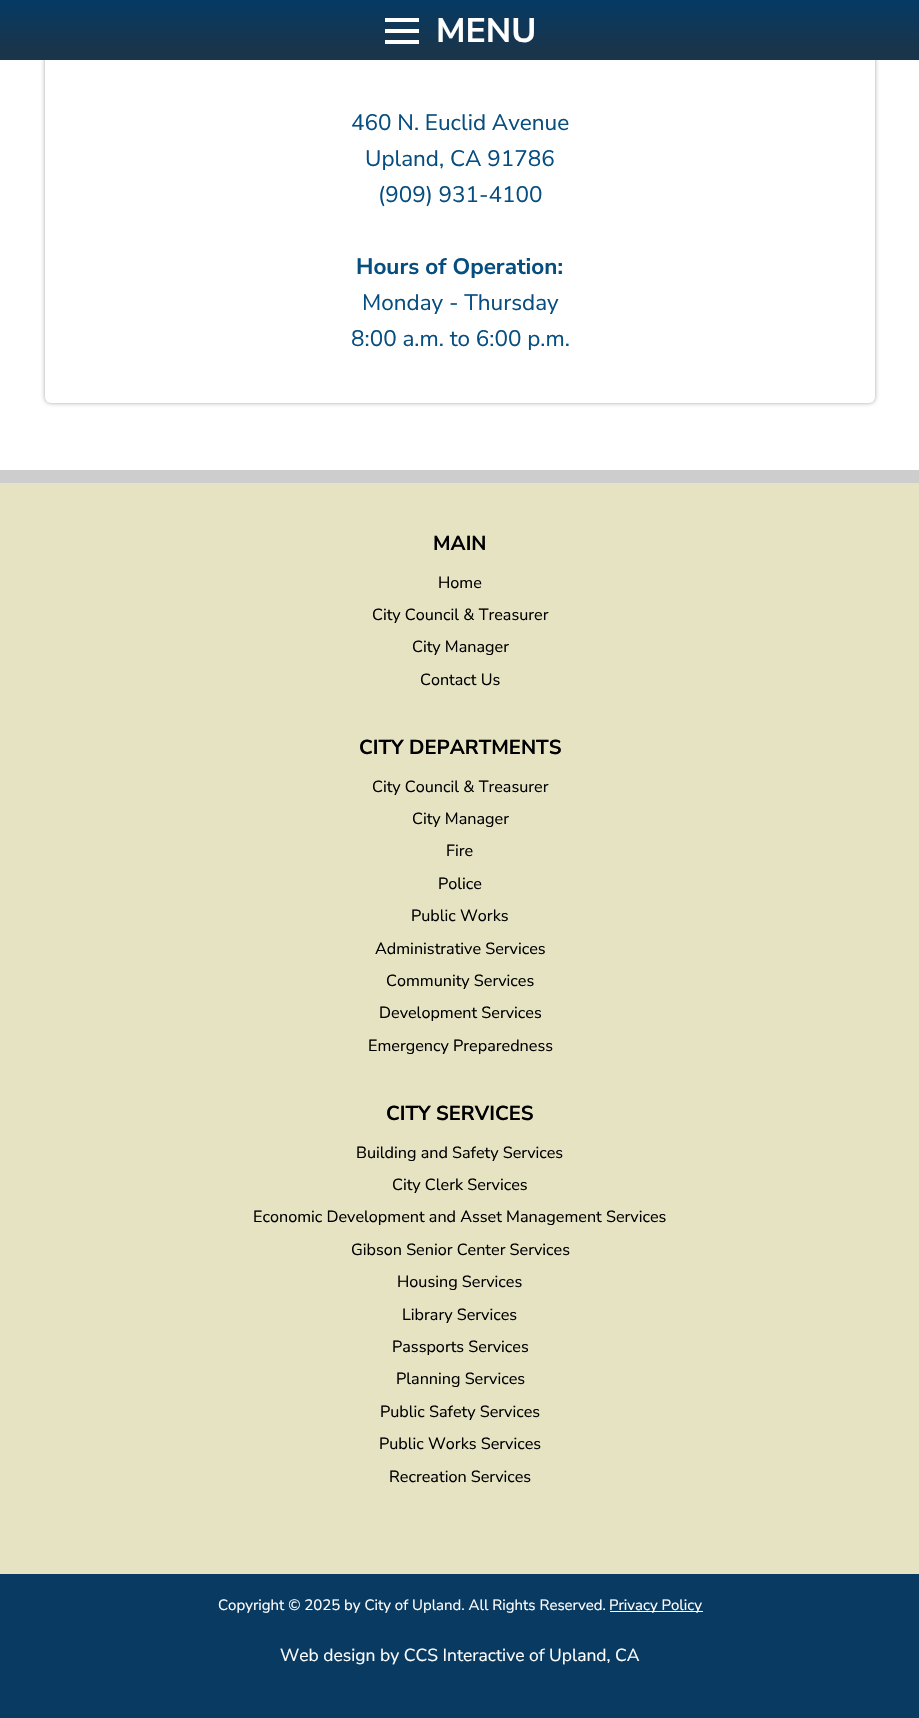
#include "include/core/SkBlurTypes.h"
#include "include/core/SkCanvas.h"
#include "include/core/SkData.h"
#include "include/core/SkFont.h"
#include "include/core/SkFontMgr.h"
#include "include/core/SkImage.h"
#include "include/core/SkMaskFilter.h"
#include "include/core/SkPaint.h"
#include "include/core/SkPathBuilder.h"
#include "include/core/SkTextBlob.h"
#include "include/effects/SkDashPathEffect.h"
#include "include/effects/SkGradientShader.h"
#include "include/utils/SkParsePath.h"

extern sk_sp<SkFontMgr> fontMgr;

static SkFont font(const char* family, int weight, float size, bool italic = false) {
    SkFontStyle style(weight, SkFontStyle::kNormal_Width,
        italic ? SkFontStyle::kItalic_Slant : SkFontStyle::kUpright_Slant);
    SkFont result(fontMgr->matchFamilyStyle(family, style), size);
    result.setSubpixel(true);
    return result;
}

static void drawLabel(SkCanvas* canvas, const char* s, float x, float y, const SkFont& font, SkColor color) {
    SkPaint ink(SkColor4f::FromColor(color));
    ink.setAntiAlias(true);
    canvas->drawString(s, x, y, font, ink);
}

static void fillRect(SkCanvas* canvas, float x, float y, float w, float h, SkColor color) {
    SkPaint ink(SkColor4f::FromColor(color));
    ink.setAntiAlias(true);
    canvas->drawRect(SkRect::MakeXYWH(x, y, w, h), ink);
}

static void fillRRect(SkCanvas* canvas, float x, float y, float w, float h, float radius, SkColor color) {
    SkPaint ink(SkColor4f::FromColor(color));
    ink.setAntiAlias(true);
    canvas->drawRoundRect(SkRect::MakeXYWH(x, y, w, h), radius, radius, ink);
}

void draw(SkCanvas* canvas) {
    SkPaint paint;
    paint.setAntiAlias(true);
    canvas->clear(0xFFFFFFFF);
    paint.setColor(0x59000000);
    paint.setMaskFilter(SkMaskFilter::MakeBlur(kNormal_SkBlurStyle, 2));
    canvas->drawRoundRect(SkRect::MakeXYWH(45, -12, 830, 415), 6, 6, paint);
    paint.setMaskFilter(nullptr);
    fillRRect(canvas, 45, -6, 830, 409, 6, 0xFFFFFFFF);
    {
        const SkColor colors[] = {0xFF053A65, 0xFF19354C};
        const float stops[] = {0, 0.8f};
        const SkPoint ends[] = {{460, 0}, {460, 60}};
        paint.setShader(SkGradientShader::MakeLinear(ends, colors, stops, 2, SkTileMode::kClamp));
        paint.setAlpha(255);
    }
    canvas->drawRect(SkRect::MakeXYWH(0, 0, 919, 60), paint);
    fillRect(canvas, 385, 29, 34, 4, 0xFFFFFFFF);
    fillRect(canvas, 385, 18, 34, 4, 0xFFFFFFFF);
    fillRect(canvas, 385, 40, 34, 4, 0xFFFFFFFF);
    SkFont font1 = font("Nunito Sans", 700, 34);
    drawLabel(canvas, "MENU", 436, 42, font1, 0xFFFFFFFF);
    SkFont font2 = font("Nunito Sans", 400, 22.5f);
    drawLabel(canvas, "460 N. Euclid Avenue", 351, 130, font2, 0xFF074E80);
    drawLabel(canvas, "Upland, CA 91786", 365, 166, font2, 0xFF074E80);
    drawLabel(canvas, "(909) 931-4100", 378, 202, font2, 0xFF074E80);
    SkFont font3 = font("Nunito Sans", 700, 22.5f);
    drawLabel(canvas, "Hours of Operation:", 356, 274, font3, 0xFF074E80);
    drawLabel(canvas, "Monday - Thursday", 362, 310, font2, 0xFF074E80);
    drawLabel(canvas, "8:00 a.m. to 6:00 p.m.", 351, 346, font2, 0xFF074E80);
    fillRect(canvas, 0, 483, 919, 1091, 0xFFE6E3C3);
    fillRect(canvas, 0, 470, 919, 13, 0xFFCDCDCD);
    SkFont font4 = font("Nunito Sans", 700, 20.25f);
    drawLabel(canvas, "MAIN", 433, 550, font4, 0xFF000000);
    SkFont font5 = font("Nunito Sans", 400, 16.2f);
    drawLabel(canvas, "Home", 438, 588, font5, 0xFF000000);
    drawLabel(canvas, "City Council & Treasurer", 372, 620, font5, 0xFF000000);
    drawLabel(canvas, "City Manager", 412, 652, font5, 0xFF000000);
    drawLabel(canvas, "Contact Us", 420, 685, font5, 0xFF000000);
    drawLabel(canvas, "CITY DEPARTMENTS", 359, 754, font4, 0xFF000000);
    drawLabel(canvas, "City Council & Treasurer", 372, 792, font5, 0xFF000000);
    drawLabel(canvas, "City Manager", 412, 824, font5, 0xFF000000);
    drawLabel(canvas, "Fire", 446, 856, font5, 0xFF000000);
    drawLabel(canvas, "Police", 438, 889, font5, 0xFF000000);
    drawLabel(canvas, "Public Works", 411, 921, font5, 0xFF000000);
    drawLabel(canvas, "Administrative Services", 375, 954, font5, 0xFF000000);
    drawLabel(canvas, "Community Services", 386, 986, font5, 0xFF000000);
    drawLabel(canvas, "Development Services", 379, 1018, font5, 0xFF000000);
    drawLabel(canvas, "Emergency Preparedness", 368, 1051, font5, 0xFF000000);
    drawLabel(canvas, "CITY SERVICES", 386, 1120, font4, 0xFF000000);
    drawLabel(canvas, "Building and Safety Services", 356, 1158, font5, 0xFF000000);
    drawLabel(canvas, "City Clerk Services", 392, 1190, font5, 0xFF000000);
    drawLabel(canvas, "Economic Development and Asset Management Services", 253, 1222, font5, 0xFF000000);
    drawLabel(canvas, "Gibson Senior Center Services", 351, 1255, font5, 0xFF000000);
    drawLabel(canvas, "Housing Services", 397, 1287, font5, 0xFF000000);
    drawLabel(canvas, "Library Services", 402, 1320, font5, 0xFF000000);
    drawLabel(canvas, "Passports Services", 392, 1352, font5, 0xFF000000);
    drawLabel(canvas, "Planning Services", 396, 1384, font5, 0xFF000000);
    drawLabel(canvas, "Public Safety Services", 380, 1417, font5, 0xFF000000);
    drawLabel(canvas, "Public Works Services", 379, 1449, font5, 0xFF000000);
    drawLabel(canvas, "Recreation Services", 389, 1482, font5, 0xFF000000);
    fillRect(canvas, 0, 1574, 919, 144, 0xFF093A61);
    SkFont font6 = font("Nunito Sans", 400, 15);
    drawLabel(canvas, "Copyright © 2025 by City of Upland. All Rights Reserved.", 218, 1610, font6, 0xFFFFFFFF);
    fillRect(canvas, 610, 1611, 93, 1, 0xFFFFFFFF);
    drawLabel(canvas, "Privacy Policy", 609, 1610, font6, 0xFFFFFFFF);
    SkFont font7 = font("Nunito Sans", 400, 17.5f);
    drawLabel(canvas, "Web design by CCS Interactive of Upland, CA", 280, 1661, font7, 0xFFFFFFFF);
}
